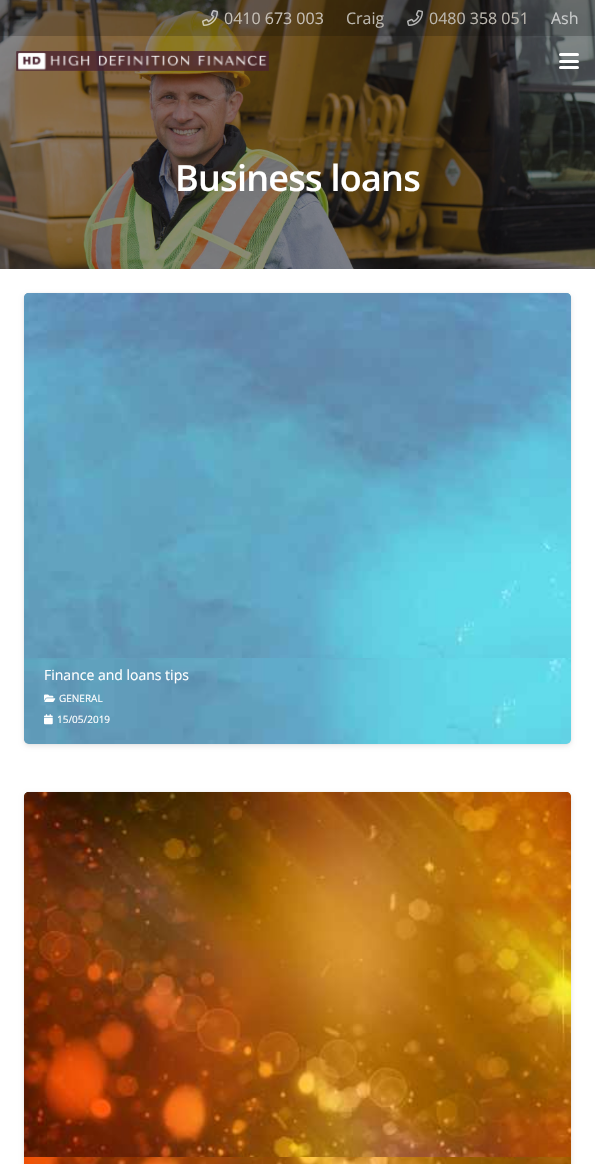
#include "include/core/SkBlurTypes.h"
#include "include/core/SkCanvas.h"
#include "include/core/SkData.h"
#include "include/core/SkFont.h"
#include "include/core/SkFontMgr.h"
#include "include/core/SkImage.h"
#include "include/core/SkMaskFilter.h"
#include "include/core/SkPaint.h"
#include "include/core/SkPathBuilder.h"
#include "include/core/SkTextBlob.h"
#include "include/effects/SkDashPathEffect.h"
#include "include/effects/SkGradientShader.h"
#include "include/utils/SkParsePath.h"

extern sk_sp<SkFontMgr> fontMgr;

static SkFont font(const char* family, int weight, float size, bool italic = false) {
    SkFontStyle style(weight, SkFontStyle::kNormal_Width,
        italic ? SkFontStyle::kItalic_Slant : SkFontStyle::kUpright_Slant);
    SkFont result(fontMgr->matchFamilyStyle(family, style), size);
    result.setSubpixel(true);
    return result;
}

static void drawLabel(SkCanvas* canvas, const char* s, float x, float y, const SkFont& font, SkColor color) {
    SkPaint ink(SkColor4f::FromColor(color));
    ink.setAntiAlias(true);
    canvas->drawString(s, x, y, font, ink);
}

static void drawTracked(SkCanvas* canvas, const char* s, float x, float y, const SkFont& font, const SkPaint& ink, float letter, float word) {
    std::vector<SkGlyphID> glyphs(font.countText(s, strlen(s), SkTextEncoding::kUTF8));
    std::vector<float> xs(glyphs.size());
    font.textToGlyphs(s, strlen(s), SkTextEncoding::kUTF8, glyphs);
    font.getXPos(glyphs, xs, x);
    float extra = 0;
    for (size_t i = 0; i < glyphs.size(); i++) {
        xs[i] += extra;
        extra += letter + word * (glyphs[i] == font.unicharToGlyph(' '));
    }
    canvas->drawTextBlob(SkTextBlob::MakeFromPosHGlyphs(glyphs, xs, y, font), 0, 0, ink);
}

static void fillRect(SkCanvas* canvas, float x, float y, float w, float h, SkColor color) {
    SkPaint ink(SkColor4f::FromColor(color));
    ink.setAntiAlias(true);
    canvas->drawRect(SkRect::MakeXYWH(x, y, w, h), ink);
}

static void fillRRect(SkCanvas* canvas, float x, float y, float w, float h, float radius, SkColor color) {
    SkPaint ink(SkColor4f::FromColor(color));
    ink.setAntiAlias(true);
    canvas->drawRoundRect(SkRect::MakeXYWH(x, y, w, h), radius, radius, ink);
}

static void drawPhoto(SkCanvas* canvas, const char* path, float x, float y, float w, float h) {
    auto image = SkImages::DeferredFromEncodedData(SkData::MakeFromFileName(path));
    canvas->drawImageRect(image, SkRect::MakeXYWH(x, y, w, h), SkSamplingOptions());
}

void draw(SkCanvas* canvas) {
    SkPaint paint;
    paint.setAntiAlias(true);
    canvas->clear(0xFFFFFFFF);
    drawPhoto(canvas, "assets/img4.png", 0, 0, 595, 269);
    fillRect(canvas, 0, 0, 595, 36, 0x33000000);
    drawPhoto(canvas, "assets/img1.png", 202, 10, 16, 16);
    SkFont font1 = font("Open Sans", 400, 16);
    drawLabel(canvas, "0410 673 003", 224, 24, font1, 0xFFC5BFB6);
    drawLabel(canvas, "Craig", 346, 24, font1, 0xFFBBB7AF);
    drawPhoto(canvas, "assets/img2.png", 407, 10, 16, 16);
    drawLabel(canvas, "0480 358 051", 429, 24, font1, 0xFFBBB7AF);
    drawLabel(canvas, "Ash", 551, 24, font1, 0xFFC9CBCB);
    drawPhoto(canvas, "assets/img3.png", 16, 51, 253, 20);
    fillRRect(canvas, 559, 60, 20, 3, 1.5f, 0xFFFFFFFF);
    fillRRect(canvas, 559, 53, 20, 3, 1.5f, 0xFFFFFFFF);
    fillRRect(canvas, 559, 66, 20, 3, 1.5f, 0xFFFFFFFF);
    SkFont font2 = font("Open Sans", 600, 36);
    paint.setColor(0xFFFFFFFF);
    drawTracked(canvas, "Business loans", 175, 191, font2, paint, -0.75f, 0);
    paint.setColor(0x1A000000);
    paint.setMaskFilter(SkMaskFilter::MakeBlur(kNormal_SkBlurStyle, 2.5f));
    canvas->drawRoundRect(SkRect::MakeXYWH(24, 295, 547, 451), 5, 5, paint);
    paint.setMaskFilter(nullptr);
    paint.setMaskFilter(SkMaskFilter::MakeBlur(kNormal_SkBlurStyle, 0.5f));
    canvas->drawRoundRect(SkRect::MakeXYWH(24, 293, 547, 451), 5, 5, paint);
    paint.setMaskFilter(nullptr);
    drawPhoto(canvas, "assets/img5.png", 24, 293, 547, 451);
    drawPhoto(canvas, "assets/img6.png", 24, 293, 547, 365);
    SkFont font3 = font("Open Sans", 400, 14);
    drawLabel(canvas, "Finance and loans tips", 44, 680, font3, 0xFFFFFFFF);
    drawPhoto(canvas, "assets/img7.png", 44, 694, 12, 8);
    SkFont font4 = font("Open Sans", 400, 10);
    drawLabel(canvas, "GENERAL", 59, 702, font4, 0xFFFFFFFF);
    drawPhoto(canvas, "assets/img8.png", 44, 714, 9, 11);
    drawLabel(canvas, "15/05/2019", 57, 723, font4, 0xFFFFFFFF);
    paint.setMaskFilter(SkMaskFilter::MakeBlur(kNormal_SkBlurStyle, 2.5f));
    canvas->drawRoundRect(SkRect::MakeXYWH(24, 794, 547, 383), 5, 5, paint);
    paint.setMaskFilter(nullptr);
    paint.setMaskFilter(SkMaskFilter::MakeBlur(kNormal_SkBlurStyle, 0.5f));
    canvas->drawRoundRect(SkRect::MakeXYWH(24, 792, 547, 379), 5, 5, paint);
    paint.setMaskFilter(nullptr);
    drawPhoto(canvas, "assets/img9.png", 24, 792, 547, 372);
    drawPhoto(canvas, "assets/img10.png", 24, 792, 547, 365);
}
